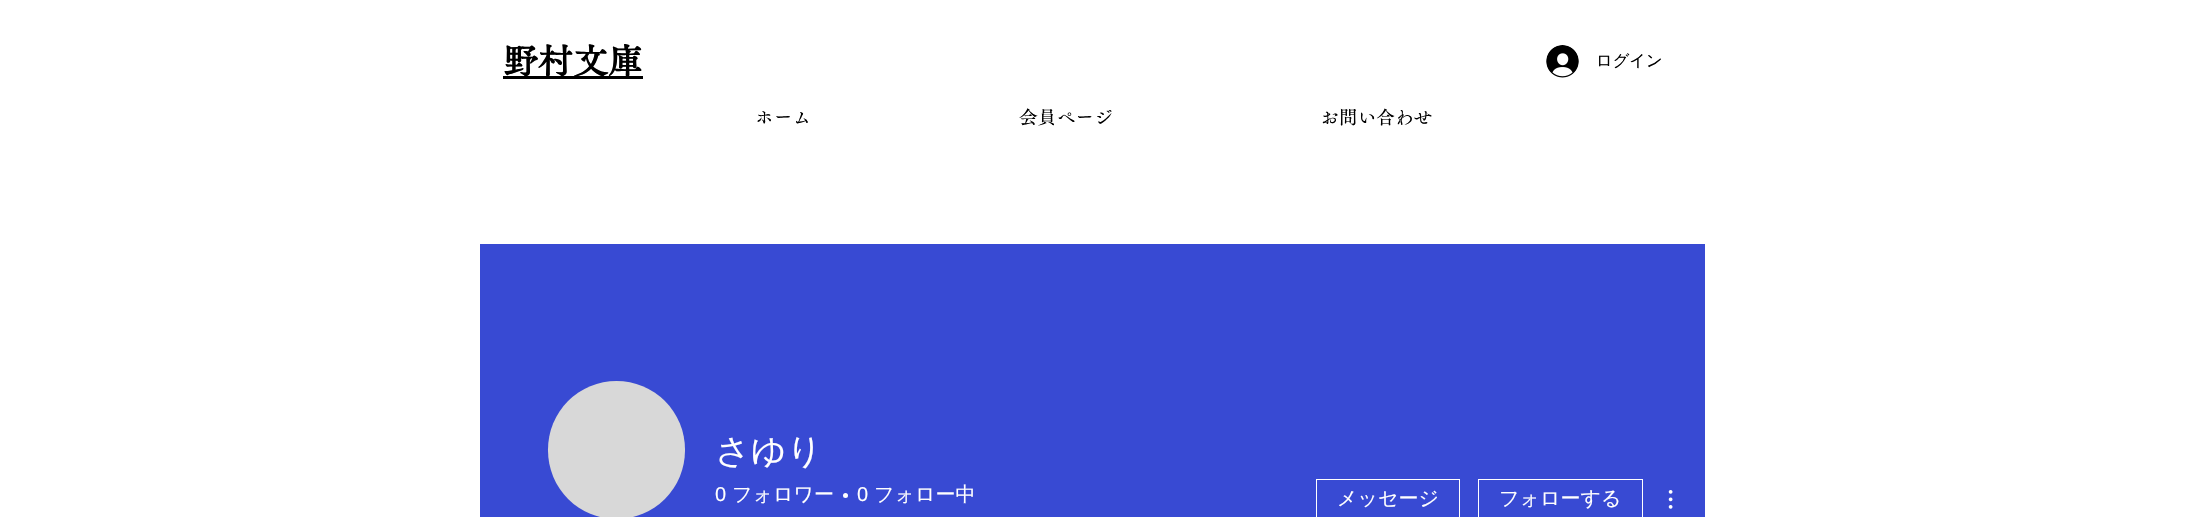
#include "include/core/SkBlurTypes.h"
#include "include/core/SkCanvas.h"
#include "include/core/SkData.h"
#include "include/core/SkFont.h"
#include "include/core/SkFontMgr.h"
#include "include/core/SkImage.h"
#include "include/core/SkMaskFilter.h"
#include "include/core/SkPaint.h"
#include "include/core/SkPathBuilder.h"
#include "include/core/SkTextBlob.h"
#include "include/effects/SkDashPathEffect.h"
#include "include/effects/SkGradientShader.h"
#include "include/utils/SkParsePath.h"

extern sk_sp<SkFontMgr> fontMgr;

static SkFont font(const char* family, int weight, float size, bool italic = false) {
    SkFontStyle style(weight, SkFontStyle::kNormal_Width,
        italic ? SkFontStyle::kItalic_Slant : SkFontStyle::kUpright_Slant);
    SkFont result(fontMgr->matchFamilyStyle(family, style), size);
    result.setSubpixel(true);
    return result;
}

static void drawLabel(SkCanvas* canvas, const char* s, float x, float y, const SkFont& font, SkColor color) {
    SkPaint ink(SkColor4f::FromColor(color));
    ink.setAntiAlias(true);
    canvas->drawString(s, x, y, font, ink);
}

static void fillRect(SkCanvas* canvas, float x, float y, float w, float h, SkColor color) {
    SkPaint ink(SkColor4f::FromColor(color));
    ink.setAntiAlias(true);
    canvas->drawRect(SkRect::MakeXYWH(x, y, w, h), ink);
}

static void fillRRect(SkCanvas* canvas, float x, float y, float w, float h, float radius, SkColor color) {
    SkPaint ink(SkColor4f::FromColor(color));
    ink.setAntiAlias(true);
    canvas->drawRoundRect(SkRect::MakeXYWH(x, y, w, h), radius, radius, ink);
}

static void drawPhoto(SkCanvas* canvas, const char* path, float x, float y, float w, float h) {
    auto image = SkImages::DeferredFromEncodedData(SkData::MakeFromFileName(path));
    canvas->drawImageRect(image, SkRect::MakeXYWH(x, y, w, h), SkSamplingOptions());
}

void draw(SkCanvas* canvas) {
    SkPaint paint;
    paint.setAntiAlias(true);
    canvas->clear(0xFFFFFFFF);
    fillRect(canvas, 503, 76, 140, 3, 0xFF000000);
    SkFont font1 = font("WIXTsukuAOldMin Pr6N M", 700, 35);
    drawLabel(canvas, "野村文庫", 503, 74, font1, 0xFF000000);
    drawPhoto(canvas, "assets/img1.png", 1546, 45, 33, 33);
    SkFont font2 = font("WenQuanYi Zen Hei", 500, 16.25f);
    drawLabel(canvas, "ログイン", 1596, 66, font2, 0xFF000000);
    SkFont font3 = font("WIXTsukuAOldMin Pr6N M", 500, 18.75f);
    drawLabel(canvas, "ホーム", 755, 124, font3, 0xFF000000);
    drawLabel(canvas, "会員ページ", 1019, 124, font3, 0xFF000000);
    drawLabel(canvas, "お問い合わせ", 1320, 124, font3, 0xFF000000);
    fillRect(canvas, 480, 244, 1225, 273, 0xFF384AD3);
    fillRRect(canvas, 548, 381, 137, 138, 68.5f, 0xFFD8D8D8);
    SkFont font4 = font("WenQuanYi Zen Hei", 500, 35);
    drawLabel(canvas, "さゆり", 715, 463, font4, 0xFFFFFFFF);
    SkFont font5 = font("Liberation Sans", 400, 20);
    drawLabel(canvas, "0", 715, 501, font5, 0xFFFFFFFF);
    SkFont font6 = font("WenQuanYi Zen Hei", 500, 20);
    drawLabel(canvas, "フォロワー", 732, 501, font6, 0xFFFFFFFF);
    paint.setColor(0xFFFFFFFF);
    canvas->drawCircle(845.5f, 495.5f, 2.5f, paint);
    drawLabel(canvas, "0", 857, 501, font5, 0xFFFFFFFF);
    drawLabel(canvas, "フォロー中", 874, 501, font6, 0xFFFFFFFF);
    paint.setStroke(true);
    paint.setStrokeWidth(1);
    canvas->drawRect(SkRect::MakeXYWH(1316.5f, 479.5f, 143, 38), paint);
    drawLabel(canvas, "メッセージ", 1337, 505, font6, 0xFFFFFFFF);
    canvas->drawRect(SkRect::MakeXYWH(1478.5f, 479.5f, 164, 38), paint);
    drawLabel(canvas, "フォローする", 1499, 505, font6, 0xFFFFFFFF);
    drawPhoto(canvas, "assets/img2.png", 1668, 490, 5, 19);
}
